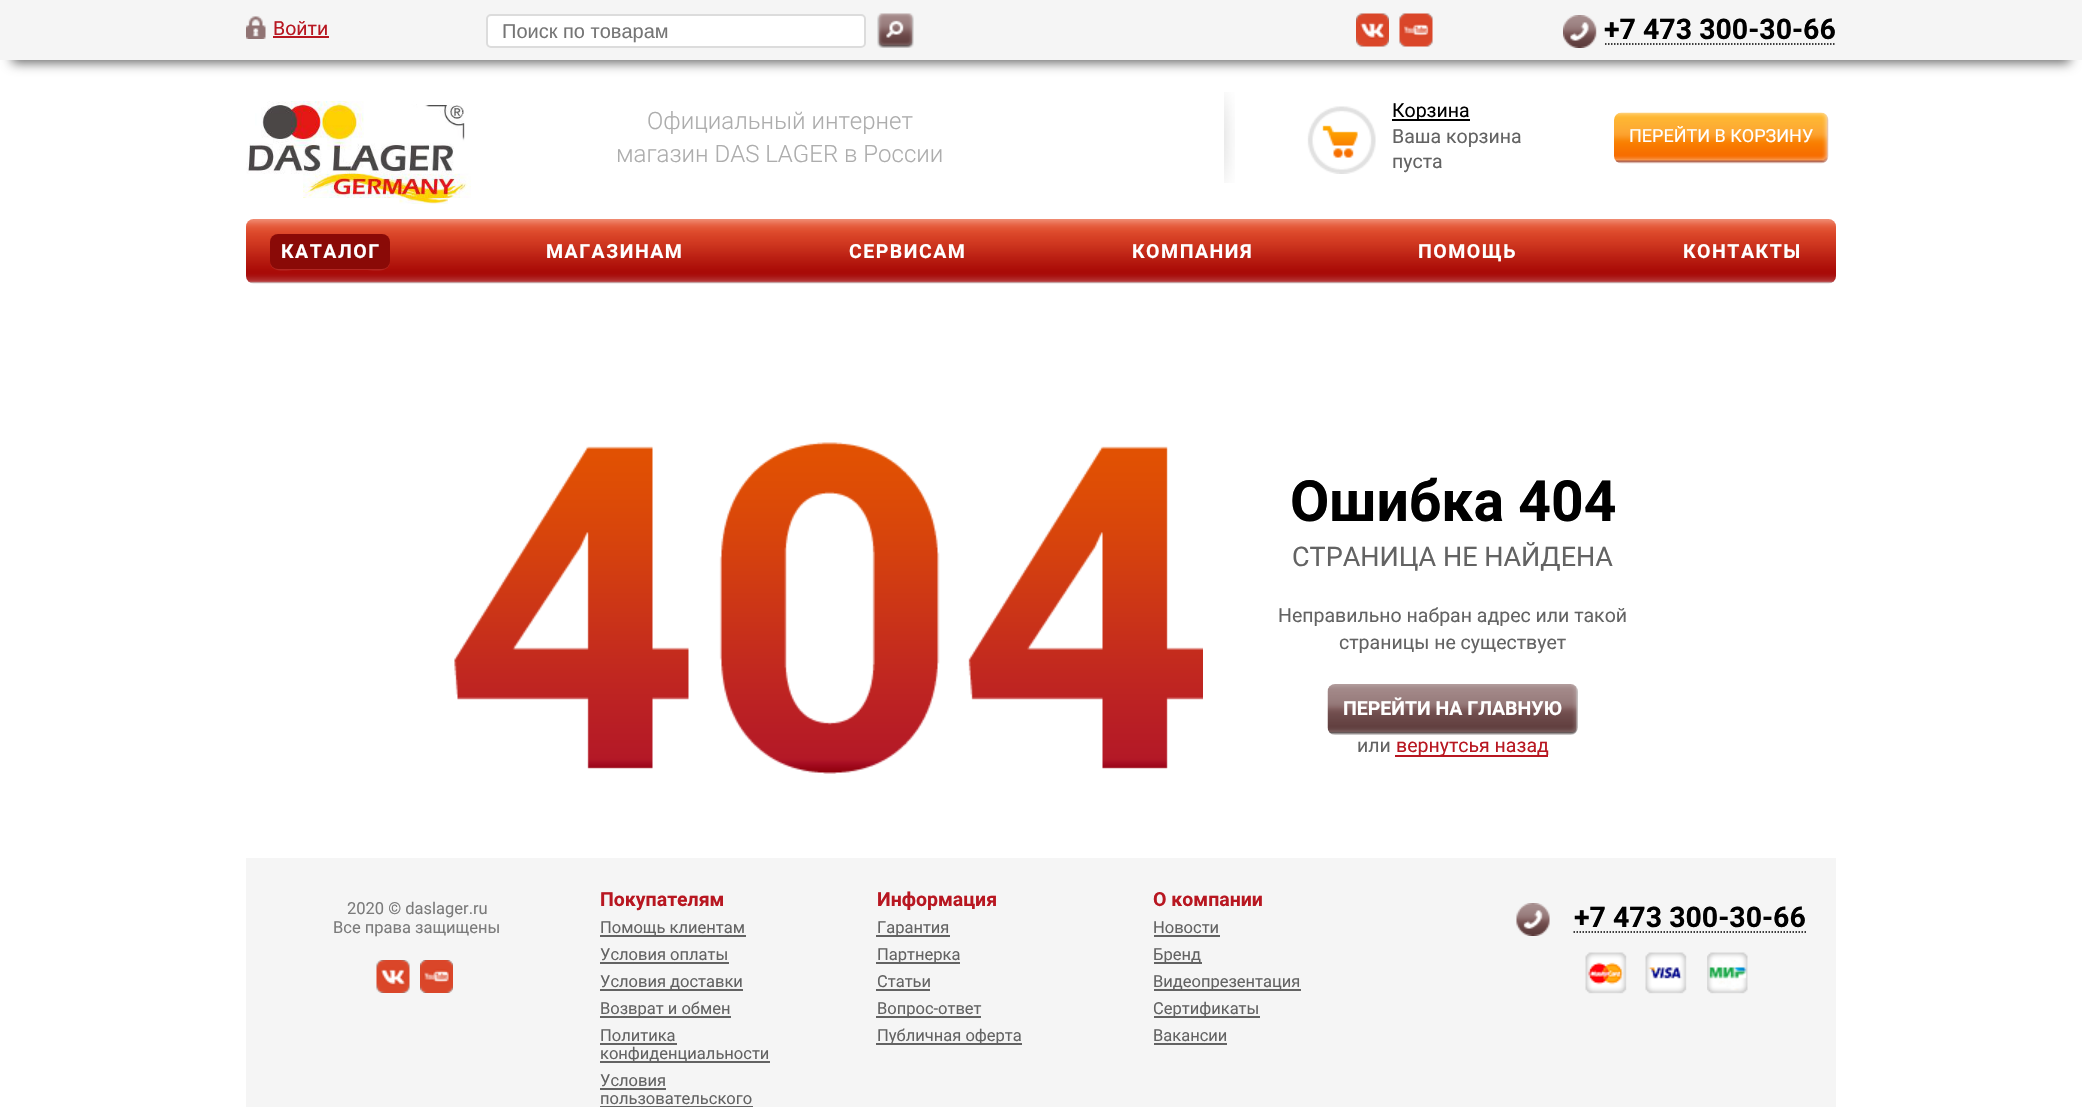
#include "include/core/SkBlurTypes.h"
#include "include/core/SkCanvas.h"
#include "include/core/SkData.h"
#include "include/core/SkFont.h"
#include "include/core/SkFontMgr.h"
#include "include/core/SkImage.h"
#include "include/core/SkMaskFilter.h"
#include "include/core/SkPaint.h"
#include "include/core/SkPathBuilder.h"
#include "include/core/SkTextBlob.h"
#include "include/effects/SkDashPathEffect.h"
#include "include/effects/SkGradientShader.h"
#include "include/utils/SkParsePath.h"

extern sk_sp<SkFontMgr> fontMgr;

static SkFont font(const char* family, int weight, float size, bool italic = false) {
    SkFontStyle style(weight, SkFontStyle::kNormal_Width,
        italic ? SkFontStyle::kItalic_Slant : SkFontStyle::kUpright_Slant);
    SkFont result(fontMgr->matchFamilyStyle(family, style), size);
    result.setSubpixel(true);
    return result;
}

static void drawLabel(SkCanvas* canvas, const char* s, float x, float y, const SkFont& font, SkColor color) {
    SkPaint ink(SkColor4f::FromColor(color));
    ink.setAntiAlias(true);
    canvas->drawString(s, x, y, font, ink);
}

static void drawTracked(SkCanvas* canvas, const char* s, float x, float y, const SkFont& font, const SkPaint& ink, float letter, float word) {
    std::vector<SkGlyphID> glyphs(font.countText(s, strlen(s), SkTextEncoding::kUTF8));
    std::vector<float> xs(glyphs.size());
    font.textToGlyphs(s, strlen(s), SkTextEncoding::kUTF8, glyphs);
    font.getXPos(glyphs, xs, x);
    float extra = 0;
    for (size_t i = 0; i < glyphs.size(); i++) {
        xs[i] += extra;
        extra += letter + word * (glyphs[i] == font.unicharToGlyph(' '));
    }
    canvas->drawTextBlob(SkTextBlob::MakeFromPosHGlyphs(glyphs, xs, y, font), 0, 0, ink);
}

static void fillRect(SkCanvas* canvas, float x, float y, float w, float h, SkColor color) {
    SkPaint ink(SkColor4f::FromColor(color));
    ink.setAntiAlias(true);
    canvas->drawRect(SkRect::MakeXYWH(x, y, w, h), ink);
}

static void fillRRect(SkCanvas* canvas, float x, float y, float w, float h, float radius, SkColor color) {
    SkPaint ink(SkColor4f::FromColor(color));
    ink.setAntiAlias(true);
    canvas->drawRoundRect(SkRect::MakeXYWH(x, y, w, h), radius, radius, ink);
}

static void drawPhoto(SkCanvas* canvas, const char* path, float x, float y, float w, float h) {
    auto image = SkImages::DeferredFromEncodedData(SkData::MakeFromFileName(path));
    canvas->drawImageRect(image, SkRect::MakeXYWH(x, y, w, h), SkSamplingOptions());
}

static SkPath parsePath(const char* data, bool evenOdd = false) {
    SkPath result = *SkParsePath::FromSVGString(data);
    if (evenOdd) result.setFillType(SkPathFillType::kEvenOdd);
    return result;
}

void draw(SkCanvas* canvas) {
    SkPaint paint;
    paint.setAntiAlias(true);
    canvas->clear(0xFFFFFFFF);
    paint.setColor(0x96000000);
    paint.setMaskFilter(SkMaskFilter::MakeBlur(kNormal_SkBlurStyle, 6));
    canvas->drawRect(SkRect::MakeXYWH(12, 27, 2058, 36), paint);
    paint.setMaskFilter(nullptr);
    fillRect(canvas, 0, 0, 2082, 60, 0xFFF5F5F5);
    drawPhoto(canvas, "assets/img1.png", 246, 16, 20, 23);
    SkFont font1 = font("Roboto", 400, 19.5f);
    drawLabel(canvas, "Войти", 273, 35, font1, 0xFFB81721);
    fillRect(canvas, 273, 36, 56, 2, 0xFFB81721);
    paint.setColor(0xFFFFFFFF);
    canvas->drawRoundRect(SkRect::MakeXYWH(487, 15, 378, 32), 4, 4, paint);
    paint.setStroke(true);
    paint.setStrokeWidth(2);
    paint.setColor(0xFFDCDCDC);
    canvas->drawRoundRect(SkRect::MakeXYWH(487, 15, 378, 32), 4, 4, paint);
    SkFont font2 = font("Liberation Sans", 400, 20);
    drawLabel(canvas, "Поиск по товарам", 502, 38, font2, 0xFF757575);
    drawPhoto(canvas, "assets/img2.png", 877, 13, 37, 35);
    drawPhoto(canvas, "assets/img3.png", 1356, 13, 33, 34);
    drawPhoto(canvas, "assets/img4.png", 1399, 13, 34, 34);
    drawPhoto(canvas, "assets/img5.png", 1563, 15, 34, 33);
    paint.setStrokeWidth(1.5f);
    paint.setColor(0xFF000000);
    paint.setPathEffect(SkDashPathEffect::Make({{1.5f, 1.5f}}, 0));
    canvas->drawPath(parsePath("M1605 44H1836"), paint);
    paint.setPathEffect(nullptr);
    SkFont font3 = font("Roboto", 700, 28.5f);
    drawLabel(canvas, "+7 473 300-30-66", 1604, 39, font3, 0xFF000000);
    drawPhoto(canvas, "assets/img6.png", 246, 101, 225, 103);
    SkFont font4 = font("Roboto", 300, 24);
    drawLabel(canvas, "Официальный интернет", 647, 129, font4, 0xFFADADAD);
    drawLabel(canvas, "магазин DAS LAGER в России", 616, 162, font4, 0xFFADADAD);
    drawPhoto(canvas, "assets/img7.png", 1224, 92, 11, 91);
    drawPhoto(canvas, "assets/img8.png", 1307, 106, 69, 68);
    fillRect(canvas, 1392, 119, 78, 2, 0xFF000000);
    drawLabel(canvas, "Корзина", 1392, 117, font1, 0xFF000000);
    drawLabel(canvas, "Ваша корзина", 1392, 143, font1, 0xFF636363);
    drawLabel(canvas, "пуста", 1392, 168, font1, 0xFF636363);
    drawPhoto(canvas, "assets/img9.png", 1614, 112, 215, 52);
    SkFont font5 = font("Roboto", 400, 18);
    drawLabel(canvas, "ПЕРЕЙТИ В КОРЗИНУ", 1629, 142, font5, 0xFFFFFFFF);
    drawPhoto(canvas, "assets/img10.png", 246, 219, 1590, 65);
    paint.setStroke(false);
    paint.setColor(0x1AFFFFFF);
    canvas->drawPath(parsePath("M270 261C270 274 287 270 295 270H365C373 270 390 274 390 261C390 265 387 268 382 268H278C273 268 270 265 270 261Z"), paint);
    fillRRect(canvas, 270, 234, 120, 35, 8, 0xFF8A0A07);
    SkFont font6 = font("Roboto", 700, 19.5f);
    paint.setColor(0xFFFFFFFF);
    drawTracked(canvas, "КАТАЛОГ", 281, 258, font6, paint, 1.5f, 0);
    drawTracked(canvas, "МАГАЗИНАМ", 546, 258, font6, paint, 1.5f, 0);
    drawTracked(canvas, "СЕРВИСАМ", 849, 258, font6, paint, 1.5f, 0);
    drawTracked(canvas, "КОМПАНИЯ", 1132, 258, font6, paint, 1.5f, 0);
    drawTracked(canvas, "ПОМОЩЬ", 1418, 258, font6, paint, 1.5f, 0);
    drawTracked(canvas, "КОНТАКТЫ", 1683, 258, font6, paint, 1.5f, 0);
    drawPhoto(canvas, "assets/img11.png", 454, 442, 749, 332);
    SkFont font7 = font("Roboto", 700, 57);
    drawLabel(canvas, "Ошибка 404", 1290, 521, font7, 0xFF000000);
    SkFont font8 = font("Roboto", 400, 27);
    drawLabel(canvas, "СТРАНИЦА НЕ НАЙДЕНА", 1292, 566, font8, 0xFF636363);
    drawLabel(canvas, "Неправильно набран адрес или такой", 1278, 622, font1, 0xFF636363);
    drawLabel(canvas, "страницы не существует", 1339, 649, font1, 0xFF636363);
    drawPhoto(canvas, "assets/img12.png", 1327, 684, 251, 51);
    drawLabel(canvas, "ПЕРЕЙТИ НА ГЛАВНУЮ", 1343, 715, font6, 0xFFFFFFFF);
    drawLabel(canvas, "или", 1357, 752, font1, 0xFF636363);
    fillRect(canvas, 1395, 755, 153, 2, 0xFFB81721);
    drawLabel(canvas, "вернутсья назад", 1396, 752, font1, 0xFFB81721);
    fillRect(canvas, 246, 858, 1590, 249, 0xFFF5F5F5);
    SkFont font9 = font("Roboto", 400, 16.5f);
    drawLabel(canvas, "2020 © daslager.ru", 347, 914, font9, 0xFF7B7B7B);
    drawLabel(canvas, "Все права защищены", 333, 933, font9, 0xFF7B7B7B);
    drawPhoto(canvas, "assets/img13.png", 376, 960, 34, 33);
    drawPhoto(canvas, "assets/img14.png", 420, 960, 33, 33);
    drawLabel(canvas, "Покупателям", 600, 906, font6, 0xFFB81721);
    fillRect(canvas, 600, 935, 146, 2, 0xFF636363);
    drawLabel(canvas, "Помощь клиентам", 600, 933, font9, 0xFF636363);
    drawLabel(canvas, "Условия оплаты", 600, 960, font9, 0xFF636363);
    fillRect(canvas, 600, 962, 129, 2, 0xFF636363);
    fillRect(canvas, 600, 989, 143, 2, 0xFF636363);
    drawLabel(canvas, "Условия доставки", 600, 987, font9, 0xFF636363);
    fillRect(canvas, 600, 1016, 131, 2, 0xFF636363);
    drawLabel(canvas, "Возврат и обмен", 600, 1014, font9, 0xFF636363);
    drawLabel(canvas, "Политика", 600, 1041, font9, 0xFF636363);
    fillRect(canvas, 600, 1043, 77, 2, 0xFF636363);
    fillRect(canvas, 600, 1061, 170, 2, 0xFF636363);
    drawLabel(canvas, "конфиденциальности", 600, 1059, font9, 0xFF636363);
    drawLabel(canvas, "Условия", 600, 1086, font9, 0xFF636363);
    fillRect(canvas, 600, 1088, 66, 2, 0xFF636363);
    drawLabel(canvas, "пользовательского", 600, 1104, font9, 0xFF636363);
    fillRect(canvas, 600, 1106, 153, 1, 0xFF636363);
    drawLabel(canvas, "Информация", 877, 906, font6, 0xFFB81721);
    fillRect(canvas, 876, 935, 74, 2, 0xFF636363);
    drawLabel(canvas, "Гарантия", 877, 933, font9, 0xFF636363);
    fillRect(canvas, 876, 962, 84, 2, 0xFF636363);
    drawLabel(canvas, "Партнерка", 877, 960, font9, 0xFF636363);
    drawLabel(canvas, "Статьи", 877, 987, font9, 0xFF636363);
    fillRect(canvas, 876, 989, 54, 2, 0xFF636363);
    fillRect(canvas, 876, 1016, 105, 2, 0xFF636363);
    drawLabel(canvas, "Вопрос-ответ", 877, 1014, font9, 0xFF636363);
    fillRect(canvas, 876, 1043, 146, 2, 0xFF636363);
    drawLabel(canvas, "Публичная оферта", 877, 1041, font9, 0xFF636363);
    drawLabel(canvas, "О компании", 1153, 906, font6, 0xFFB81721);
    drawLabel(canvas, "Новости", 1153, 933, font9, 0xFF636363);
    fillRect(canvas, 1154, 935, 66, 2, 0xFF636363);
    fillRect(canvas, 1154, 962, 48, 2, 0xFF636363);
    drawLabel(canvas, "Бренд", 1153, 960, font9, 0xFF636363);
    fillRect(canvas, 1154, 989, 147, 2, 0xFF636363);
    drawLabel(canvas, "Видеопрезентация", 1153, 987, font9, 0xFF636363);
    fillRect(canvas, 1154, 1016, 106, 2, 0xFF636363);
    drawLabel(canvas, "Сертификаты", 1153, 1014, font9, 0xFF636363);
    drawLabel(canvas, "Вакансии", 1153, 1041, font9, 0xFF636363);
    fillRect(canvas, 1154, 1043, 73, 2, 0xFF636363);
    drawPhoto(canvas, "assets/img15.png", 1516, 903, 34, 33);
    paint.setStroke(true);
    paint.setColor(0xFF000000);
    paint.setPathEffect(SkDashPathEffect::Make({{1.5f, 1.5f}}, 0));
    canvas->drawPath(parsePath("M1573.5 932H1806"), paint);
    paint.setPathEffect(nullptr);
    drawLabel(canvas, "+7 473 300-30-66", 1574, 927, font3, 0xFF000000);
    drawPhoto(canvas, "assets/img16.png", 1585, 952, 42, 42);
    drawPhoto(canvas, "assets/img17.png", 1645, 952, 42, 42);
    drawPhoto(canvas, "assets/img18.png", 1707, 952, 41, 42);
}
